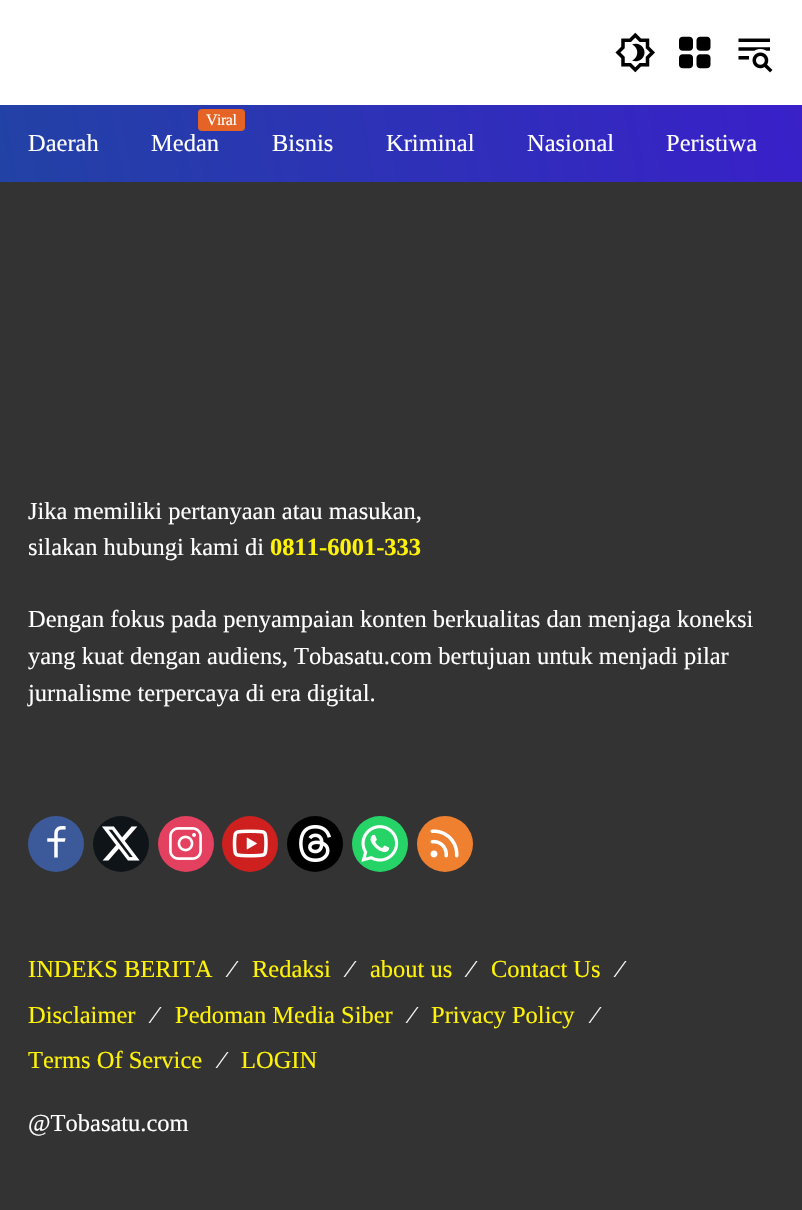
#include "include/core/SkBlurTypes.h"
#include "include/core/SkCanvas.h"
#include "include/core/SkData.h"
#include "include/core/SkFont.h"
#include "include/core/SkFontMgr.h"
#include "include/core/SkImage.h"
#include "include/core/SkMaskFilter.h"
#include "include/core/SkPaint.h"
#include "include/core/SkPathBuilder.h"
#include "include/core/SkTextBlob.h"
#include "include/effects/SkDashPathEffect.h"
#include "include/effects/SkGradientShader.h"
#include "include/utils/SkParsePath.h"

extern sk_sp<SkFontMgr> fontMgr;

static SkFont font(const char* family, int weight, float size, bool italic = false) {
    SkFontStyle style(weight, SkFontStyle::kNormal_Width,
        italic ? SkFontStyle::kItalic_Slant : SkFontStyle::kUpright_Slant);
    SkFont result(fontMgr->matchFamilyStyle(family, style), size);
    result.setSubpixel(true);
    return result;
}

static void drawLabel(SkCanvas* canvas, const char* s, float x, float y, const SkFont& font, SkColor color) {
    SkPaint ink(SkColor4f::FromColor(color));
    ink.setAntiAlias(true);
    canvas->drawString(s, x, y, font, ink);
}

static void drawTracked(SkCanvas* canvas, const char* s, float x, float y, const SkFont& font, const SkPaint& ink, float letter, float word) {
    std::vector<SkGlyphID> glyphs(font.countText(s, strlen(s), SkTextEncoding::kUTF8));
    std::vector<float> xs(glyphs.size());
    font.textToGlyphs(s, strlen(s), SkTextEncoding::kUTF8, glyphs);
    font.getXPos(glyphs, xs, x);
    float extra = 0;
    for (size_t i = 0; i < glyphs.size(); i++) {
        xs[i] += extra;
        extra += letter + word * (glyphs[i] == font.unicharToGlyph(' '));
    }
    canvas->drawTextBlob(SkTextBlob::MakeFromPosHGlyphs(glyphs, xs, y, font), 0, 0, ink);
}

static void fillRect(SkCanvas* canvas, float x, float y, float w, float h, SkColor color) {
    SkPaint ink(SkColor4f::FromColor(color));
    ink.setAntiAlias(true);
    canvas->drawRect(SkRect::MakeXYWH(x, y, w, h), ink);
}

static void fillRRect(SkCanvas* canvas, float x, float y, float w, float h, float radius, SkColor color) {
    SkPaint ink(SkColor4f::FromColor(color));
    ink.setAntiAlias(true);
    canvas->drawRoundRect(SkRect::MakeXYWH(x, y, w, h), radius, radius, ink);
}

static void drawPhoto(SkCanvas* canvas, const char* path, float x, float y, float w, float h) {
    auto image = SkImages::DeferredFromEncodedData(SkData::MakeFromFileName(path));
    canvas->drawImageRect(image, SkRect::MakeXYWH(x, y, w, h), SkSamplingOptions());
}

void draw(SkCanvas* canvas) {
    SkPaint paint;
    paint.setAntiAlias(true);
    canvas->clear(0xFF333333);
    fillRect(canvas, 0, 0, 802, 105, 0xFFFFFFFF);
    drawPhoto(canvas, "assets/img1.png", 615, 32, 40, 41);
    drawPhoto(canvas, "assets/img2.png", 679, 36, 32, 33);
    drawPhoto(canvas, "assets/img3.png", 738, 38, 35, 35);
    {
        const SkColor colors[] = {0xFF2242A5, 0xFF3920C9};
        const float stops[] = {0, 1};
        const SkPoint ends[] = {{5.5f, 213}, {798, 74}};
        paint.setShader(SkGradientShader::MakeLinear(ends, colors, stops, 2, SkTileMode::kClamp));
        paint.setAlpha(255);
    }
    canvas->drawRect(SkRect::MakeXYWH(0, 105, 802, 77), paint);
    SkFont font1 = font("Liberation Serif", 400, 24.5f);
    drawLabel(canvas, "Daerah", 28, 151, font1, 0xFFFFFFFF);
    fillRRect(canvas, 198, 109, 47, 22, 4, 0xFFE56324);
    SkFont font2 = font("Liberation Serif", 400, 16);
    paint.setShader(nullptr);
    paint.setColor(0xFFFFFFFF);
    drawTracked(canvas, "Viral", 206, 125, font2, paint, -0.5f, 0);
    drawLabel(canvas, "Medan", 151, 151, font1, 0xFFFFFFFF);
    drawLabel(canvas, "Bisnis", 272, 151, font1, 0xFFFFFFFF);
    drawLabel(canvas, "Kriminal", 386, 151, font1, 0xFFFFFFFF);
    drawLabel(canvas, "Nasional", 527, 151, font1, 0xFFFFFFFF);
    drawLabel(canvas, "Peristiwa", 666, 151, font1, 0xFFFFFFFF);
    drawLabel(canvas, "Jika memiliki pertanyaan atau masukan,", 28, 519, font1, 0xFFFFFFFF);
    drawLabel(canvas, "silakan hubungi kami di", 28, 555, font1, 0xFFFFFFFF);
    SkFont font3 = font("Liberation Serif", 700, 24.5f);
    drawLabel(canvas, "0811-6001-333", 270, 555, font3, 0xFFFFF20A);
    drawLabel(canvas, "Dengan fokus pada penyampaian konten berkualitas dan menjaga koneksi", 28, 627, font1, 0xFFFFFFFF);
    drawLabel(canvas, "yang kuat dengan audiens, Tobasatu.com bertujuan untuk menjadi pilar", 28, 664, font1, 0xFFFFFFFF);
    drawLabel(canvas, "jurnalisme terpercaya di era digital.", 28, 701, font1, 0xFFFFFFFF);
    paint.setColor(0xFF3C5A99);
    canvas->drawCircle(56, 844, 28, paint);
    drawPhoto(canvas, "assets/img4.png", 47, 826, 19, 32);
    paint.setColor(0xFF0F1419);
    canvas->drawCircle(121, 844, 28, paint);
    drawPhoto(canvas, "assets/img5.png", 102, 826, 38, 35);
    paint.setColor(0xFFE4405F);
    canvas->drawCircle(186, 844, 28, paint);
    drawPhoto(canvas, "assets/img6.png", 169, 827, 33, 33);
    paint.setColor(0xFFCD201F);
    canvas->drawCircle(250, 844, 28, paint);
    drawPhoto(canvas, "assets/img7.png", 232, 829, 36, 29);
    paint.setColor(0xFF000000);
    canvas->drawCircle(315, 844, 28, paint);
    drawPhoto(canvas, "assets/img8.png", 299, 825, 32, 37);
    paint.setColor(0xFF25D366);
    canvas->drawCircle(380, 844, 28, paint);
    drawPhoto(canvas, "assets/img9.png", 361, 825, 38, 37);
    paint.setColor(0xFFEE802F);
    canvas->drawCircle(445, 844, 28, paint);
    drawPhoto(canvas, "assets/img10.png", 430, 829, 29, 29);
    drawLabel(canvas, "INDEKS BERITA", 28, 977, font1, 0xFFFFF20A);
    drawLabel(canvas, "⁄", 230, 977, font1, 0xFFFFFFFF);
    drawLabel(canvas, "Redaksi", 252, 977, font1, 0xFFFFF20A);
    drawLabel(canvas, "⁄", 348, 977, font1, 0xFFFFFFFF);
    drawLabel(canvas, "about us", 370, 977, font1, 0xFFFFF20A);
    drawLabel(canvas, "⁄", 469, 977, font1, 0xFFFFFFFF);
    drawLabel(canvas, "Contact Us", 491, 977, font1, 0xFFFFF20A);
    drawLabel(canvas, "⁄", 618, 977, font1, 0xFFFFFFFF);
    drawLabel(canvas, "Disclaimer", 28, 1023, font1, 0xFFFFF20A);
    drawLabel(canvas, "⁄", 153, 1023, font1, 0xFFFFFFFF);
    drawLabel(canvas, "Pedoman Media Siber", 175, 1023, font1, 0xFFFFF20A);
    drawLabel(canvas, "⁄", 410, 1023, font1, 0xFFFFFFFF);
    drawLabel(canvas, "Privacy Policy", 431, 1023, font1, 0xFFFFF20A);
    drawLabel(canvas, "⁄", 593, 1023, font1, 0xFFFFFFFF);
    drawLabel(canvas, "Terms Of Service", 28, 1068, font1, 0xFFFFF20A);
    drawLabel(canvas, "⁄", 220, 1068, font1, 0xFFFFFFFF);
    drawLabel(canvas, "LOGIN", 241, 1068, font1, 0xFFFFF20A);
    drawLabel(canvas, "@Tobasatu.com", 28, 1131, font1, 0xFFFFFFFF);
}
